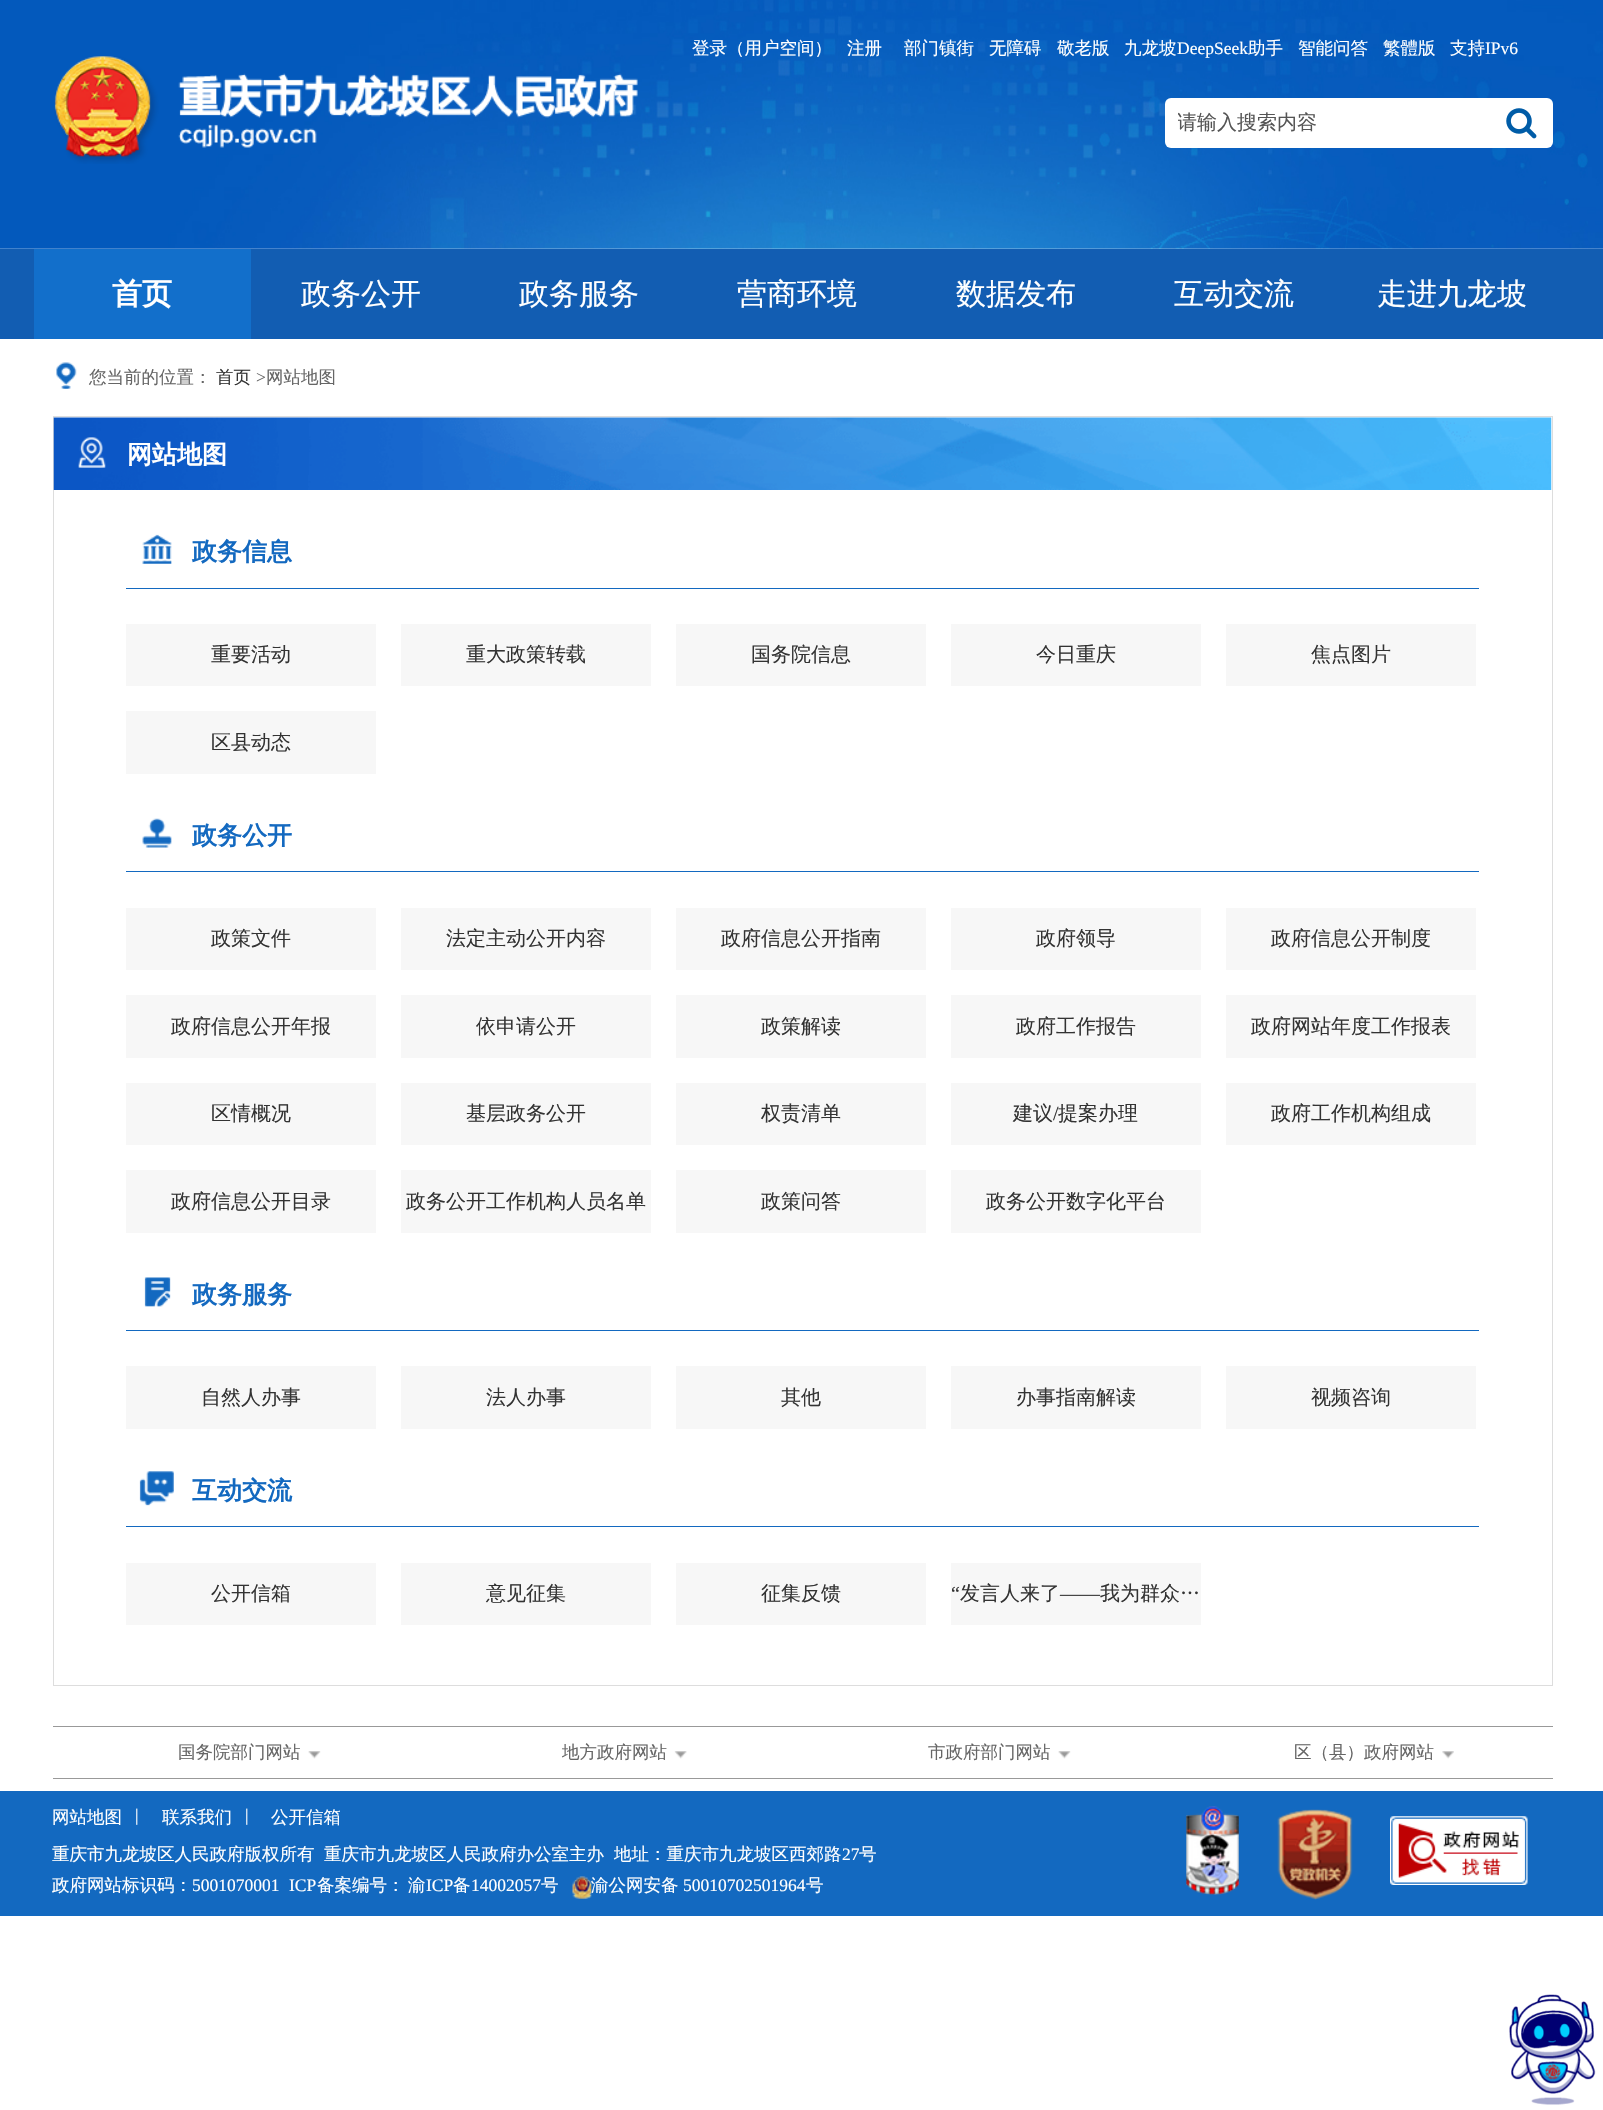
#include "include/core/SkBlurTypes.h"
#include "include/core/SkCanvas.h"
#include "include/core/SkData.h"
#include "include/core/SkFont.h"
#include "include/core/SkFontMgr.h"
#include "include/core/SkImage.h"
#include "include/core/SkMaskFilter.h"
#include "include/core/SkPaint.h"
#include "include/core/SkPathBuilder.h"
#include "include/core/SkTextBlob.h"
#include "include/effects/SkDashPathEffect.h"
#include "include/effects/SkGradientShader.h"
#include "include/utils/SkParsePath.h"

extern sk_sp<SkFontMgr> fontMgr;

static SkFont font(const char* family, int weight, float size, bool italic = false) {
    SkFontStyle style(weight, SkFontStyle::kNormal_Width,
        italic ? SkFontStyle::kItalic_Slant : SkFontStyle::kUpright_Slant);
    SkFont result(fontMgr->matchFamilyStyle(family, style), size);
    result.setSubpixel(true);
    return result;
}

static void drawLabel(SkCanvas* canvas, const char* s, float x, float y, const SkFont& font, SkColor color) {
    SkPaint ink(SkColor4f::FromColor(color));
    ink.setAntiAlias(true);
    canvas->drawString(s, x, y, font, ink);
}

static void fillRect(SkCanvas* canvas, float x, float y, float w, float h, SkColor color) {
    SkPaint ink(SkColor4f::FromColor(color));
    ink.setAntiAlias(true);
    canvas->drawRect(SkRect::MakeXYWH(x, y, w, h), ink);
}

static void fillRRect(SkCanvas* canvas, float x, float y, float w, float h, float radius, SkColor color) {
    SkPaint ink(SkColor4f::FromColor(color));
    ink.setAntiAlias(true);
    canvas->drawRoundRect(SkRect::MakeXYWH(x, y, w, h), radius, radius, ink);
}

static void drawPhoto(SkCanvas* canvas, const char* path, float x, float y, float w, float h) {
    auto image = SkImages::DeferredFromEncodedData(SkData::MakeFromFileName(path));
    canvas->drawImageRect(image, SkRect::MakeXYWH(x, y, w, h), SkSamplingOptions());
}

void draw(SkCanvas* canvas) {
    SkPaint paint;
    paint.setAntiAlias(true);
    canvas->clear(0xFFFFFFFF);
    drawPhoto(canvas, "assets/img1.png", 0, 0, 1603, 249);
    drawPhoto(canvas, "assets/img2.png", 54, 56, 584, 108);
    SkFont font1 = font("WenQuanYi Zen Hei", 500, 17.5f);
    drawLabel(canvas, "登录（用户空间）", 692, 54, font1, 0xFFFFFFFF);
    drawLabel(canvas, "注册", 847, 54, font1, 0xFFFFFFFF);
    drawLabel(canvas, "部门镇街", 904, 54, font1, 0xFFFFFFFF);
    drawLabel(canvas, "无障碍", 989, 54, font1, 0xFFFFFFFF);
    drawLabel(canvas, "敬老版", 1057, 54, font1, 0xFFFFFFFF);
    drawLabel(canvas, "九龙坡", 1124, 54, font1, 0xFFFFFFFF);
    SkFont font2 = font("Liberation Serif", 400, 17.5f);
    drawLabel(canvas, "DeepSeek", 1177, 54, font2, 0xFFFFFFFF);
    drawLabel(canvas, "助手", 1248, 54, font1, 0xFFFFFFFF);
    drawLabel(canvas, "智能问答", 1298, 54, font1, 0xFFFFFFFF);
    drawLabel(canvas, "繁體版", 1383, 54, font1, 0xFFFFFFFF);
    drawLabel(canvas, "支持", 1450, 54, font1, 0xFFFFFFFF);
    drawLabel(canvas, "IPv6", 1485, 54, font2, 0xFFFFFFFF);
    fillRRect(canvas, 1165, 98, 388, 50, 6, 0xFFFFFFFF);
    canvas->save();
    canvas->clipRect(SkRect::MakeXYWH(1178, 110, 320, 26));
    SkFont font3 = font("WenQuanYi Zen Hei", 500, 20);
    drawLabel(canvas, "请输入搜索内容", 1177, 129, font3, 0xFF555555);
    canvas->restore();
    drawPhoto(canvas, "assets/img3.png", 1506, 108, 31, 31);
    fillRect(canvas, 0, 249, 1603, 90, 0xFF125DB2);
    fillRect(canvas, 34, 249, 217, 90, 0xFF126FCB);
    SkFont font4 = font("WenQuanYi Zen Hei", 700, 30);
    drawLabel(canvas, "首页", 112, 304, font4, 0xFFFFFFFF);
    SkFont font5 = font("WenQuanYi Zen Hei", 500, 30);
    drawLabel(canvas, "政务公开", 301, 304, font5, 0xFFFFFFFF);
    drawLabel(canvas, "政务服务", 519, 304, font5, 0xFFFFFFFF);
    drawLabel(canvas, "营商环境", 737, 304, font5, 0xFFFFFFFF);
    drawLabel(canvas, "数据发布", 956, 304, font5, 0xFFFFFFFF);
    drawLabel(canvas, "互动交流", 1174, 304, font5, 0xFFFFFFFF);
    drawLabel(canvas, "走进九龙坡", 1377, 304, font5, 0xFFFFFFFF);
    drawPhoto(canvas, "assets/img4.png", 56, 362, 21, 27);
    drawLabel(canvas, "您当前的位置：", 89, 383, font1, 0xFF666666);
    drawLabel(canvas, "首页", 216, 383, font1, 0xFF333333);
    drawLabel(canvas, ">", 256, 383, font2, 0xFF666666);
    drawLabel(canvas, "网站地图", 266, 383, font1, 0xFF666666);
    paint.setStroke(true);
    paint.setStrokeWidth(1);
    paint.setColor(0xFFDDDDDD);
    canvas->drawRect(SkRect::MakeXYWH(53.5f, 416.5f, 1499, 1269), paint);
    drawPhoto(canvas, "assets/img5.png", 53, 417, 1499, 73);
    drawPhoto(canvas, "assets/img6.png", 78, 437, 28, 31);
    SkFont font6 = font("WenQuanYi Zen Hei", 700, 25);
    drawLabel(canvas, "网站地图", 127, 463, font6, 0xFFFFFFFF);
    fillRect(canvas, 126, 588, 1353, 1, 0xFF1369C0);
    drawPhoto(canvas, "assets/img7.png", 142, 534, 30, 30);
    drawLabel(canvas, "政务信息", 192, 560, font6, 0xFF1369C0);
    fillRect(canvas, 126, 624, 250, 62, 0xFFF7F7F7);
    drawLabel(canvas, "重要活动", 211, 661, font3, 0xFF333333);
    fillRect(canvas, 401, 624, 250, 62, 0xFFF7F7F7);
    drawLabel(canvas, "重大政策转载", 466, 661, font3, 0xFF333333);
    fillRect(canvas, 676, 624, 250, 62, 0xFFF7F7F7);
    drawLabel(canvas, "国务院信息", 751, 661, font3, 0xFF333333);
    fillRect(canvas, 951, 624, 250, 62, 0xFFF7F7F7);
    drawLabel(canvas, "今日重庆", 1036, 661, font3, 0xFF333333);
    fillRect(canvas, 1226, 624, 250, 62, 0xFFF7F7F7);
    drawLabel(canvas, "焦点图片", 1311, 661, font3, 0xFF333333);
    fillRect(canvas, 126, 711, 250, 63, 0xFFF7F7F7);
    drawLabel(canvas, "区县动态", 211, 749, font3, 0xFF333333);
    fillRect(canvas, 126, 871, 1353, 1, 0xFF1369C0);
    drawPhoto(canvas, "assets/img8.png", 142, 818, 30, 30);
    drawLabel(canvas, "政务公开", 192, 844, font6, 0xFF1369C0);
    fillRect(canvas, 126, 908, 250, 62, 0xFFF7F7F7);
    drawLabel(canvas, "政策文件", 211, 945, font3, 0xFF333333);
    fillRect(canvas, 401, 908, 250, 62, 0xFFF7F7F7);
    drawLabel(canvas, "法定主动公开内容", 446, 945, font3, 0xFF333333);
    fillRect(canvas, 676, 908, 250, 62, 0xFFF7F7F7);
    drawLabel(canvas, "政府信息公开指南", 721, 945, font3, 0xFF333333);
    fillRect(canvas, 951, 908, 250, 62, 0xFFF7F7F7);
    drawLabel(canvas, "政府领导", 1036, 945, font3, 0xFF333333);
    fillRect(canvas, 1226, 908, 250, 62, 0xFFF7F7F7);
    drawLabel(canvas, "政府信息公开制度", 1271, 945, font3, 0xFF333333);
    fillRect(canvas, 126, 995, 250, 63, 0xFFF7F7F7);
    drawLabel(canvas, "政府信息公开年报", 171, 1033, font3, 0xFF333333);
    fillRect(canvas, 401, 995, 250, 63, 0xFFF7F7F7);
    drawLabel(canvas, "依申请公开", 476, 1033, font3, 0xFF333333);
    fillRect(canvas, 676, 995, 250, 63, 0xFFF7F7F7);
    drawLabel(canvas, "政策解读", 761, 1033, font3, 0xFF333333);
    fillRect(canvas, 951, 995, 250, 63, 0xFFF7F7F7);
    drawLabel(canvas, "政府工作报告", 1016, 1033, font3, 0xFF333333);
    fillRect(canvas, 1226, 995, 250, 63, 0xFFF7F7F7);
    drawLabel(canvas, "政府网站年度工作报表", 1251, 1033, font3, 0xFF333333);
    fillRect(canvas, 126, 1083, 250, 62, 0xFFF7F7F7);
    drawLabel(canvas, "区情概况", 211, 1120, font3, 0xFF333333);
    fillRect(canvas, 401, 1083, 250, 62, 0xFFF7F7F7);
    drawLabel(canvas, "基层政务公开", 466, 1120, font3, 0xFF333333);
    fillRect(canvas, 676, 1083, 250, 62, 0xFFF7F7F7);
    drawLabel(canvas, "权责清单", 761, 1120, font3, 0xFF333333);
    fillRect(canvas, 951, 1083, 250, 62, 0xFFF7F7F7);
    drawLabel(canvas, "建议", 1013, 1120, font3, 0xFF333333);
    SkFont font7 = font("Liberation Serif", 400, 20);
    drawLabel(canvas, "/", 1053, 1120, font7, 0xFF333333);
    drawLabel(canvas, "提案办理", 1058, 1120, font3, 0xFF333333);
    fillRect(canvas, 1226, 1083, 250, 62, 0xFFF7F7F7);
    drawLabel(canvas, "政府工作机构组成", 1271, 1120, font3, 0xFF333333);
    fillRect(canvas, 126, 1170, 250, 63, 0xFFF7F7F7);
    drawLabel(canvas, "政府信息公开目录", 171, 1208, font3, 0xFF333333);
    fillRect(canvas, 401, 1170, 250, 63, 0xFFF7F7F7);
    drawLabel(canvas, "政务公开工作机构人员名单", 406, 1208, font3, 0xFF333333);
    fillRect(canvas, 676, 1170, 250, 63, 0xFFF7F7F7);
    drawLabel(canvas, "政策问答", 761, 1208, font3, 0xFF333333);
    fillRect(canvas, 951, 1170, 250, 63, 0xFFF7F7F7);
    drawLabel(canvas, "政务公开数字化平台", 986, 1208, font3, 0xFF333333);
    fillRect(canvas, 126, 1330, 1353, 1, 0xFF1369C0);
    drawPhoto(canvas, "assets/img9.png", 144, 1277, 27, 30);
    drawLabel(canvas, "政务服务", 192, 1303, font6, 0xFF1369C0);
    fillRect(canvas, 126, 1366, 250, 63, 0xFFF7F7F7);
    drawLabel(canvas, "自然人办事", 201, 1404, font3, 0xFF333333);
    fillRect(canvas, 401, 1366, 250, 63, 0xFFF7F7F7);
    drawLabel(canvas, "法人办事", 486, 1404, font3, 0xFF333333);
    fillRect(canvas, 676, 1366, 250, 63, 0xFFF7F7F7);
    drawLabel(canvas, "其他", 781, 1404, font3, 0xFF333333);
    fillRect(canvas, 951, 1366, 250, 63, 0xFFF7F7F7);
    drawLabel(canvas, "办事指南解读", 1016, 1404, font3, 0xFF333333);
    fillRect(canvas, 1226, 1366, 250, 63, 0xFFF7F7F7);
    drawLabel(canvas, "视频咨询", 1311, 1404, font3, 0xFF333333);
    fillRect(canvas, 126, 1526, 1353, 1, 0xFF1369C0);
    drawPhoto(canvas, "assets/img10.png", 139, 1471, 35, 35);
    drawLabel(canvas, "互动交流", 192, 1499, font6, 0xFF1369C0);
    fillRect(canvas, 126, 1563, 250, 62, 0xFFF7F7F7);
    drawLabel(canvas, "公开信箱", 211, 1600, font3, 0xFF333333);
    fillRect(canvas, 401, 1563, 250, 62, 0xFFF7F7F7);
    drawLabel(canvas, "意见征集", 486, 1600, font3, 0xFF333333);
    fillRect(canvas, 676, 1563, 250, 62, 0xFFF7F7F7);
    drawLabel(canvas, "征集反馈", 761, 1600, font3, 0xFF333333);
    fillRect(canvas, 951, 1563, 250, 62, 0xFFF7F7F7);
    drawLabel(canvas, "“", 951, 1600, font7, 0xFF333333);
    drawLabel(canvas, "发言人来了", 960, 1600, font3, 0xFF333333);
    drawLabel(canvas, "——", 1060, 1600, font7, 0xFF333333);
    drawLabel(canvas, "我为群众…", 1100, 1600, font3, 0xFF333333);
    fillRect(canvas, 53, 1726, 1500, 1, 0xFF999999);
    fillRect(canvas, 53, 1778, 1500, 1, 0xFF999999);
    drawPhoto(canvas, "assets/img11.png", 308, 1751, 13, 8);
    drawLabel(canvas, "国务院部门网站", 178, 1758, font1, 0xFF666666);
    drawPhoto(canvas, "assets/img12.png", 674, 1751, 13, 8);
    drawLabel(canvas, "地方政府网站", 562, 1758, font1, 0xFF666666);
    drawPhoto(canvas, "assets/img11.png", 1058, 1751, 13, 8);
    drawLabel(canvas, "市政府部门网站", 928, 1758, font1, 0xFF666666);
    drawPhoto(canvas, "assets/img13.png", 1442, 1751, 12, 8);
    drawLabel(canvas, "区（县）政府网站", 1294, 1758, font1, 0xFF666666);
    fillRect(canvas, 0, 1791, 1603, 125, 0xFF1369C0);
    drawLabel(canvas, "网站地图", 52, 1823, font1, 0xFFFFFFFF);
    drawLabel(canvas, "|", 135, 1821, font2, 0xFFFFFFFF);
    drawLabel(canvas, "联系我们", 162, 1823, font1, 0xFFFFFFFF);
    drawLabel(canvas, "|", 245, 1821, font2, 0xFFFFFFFF);
    drawLabel(canvas, "公开信箱", 271, 1823, font1, 0xFFFFFFFF);
    drawLabel(canvas, "重庆市九龙坡区人民政府版权所有", 52, 1860, font1, 0xFFFFFFFF);
    drawLabel(canvas, "重庆市九龙坡区人民政府办公室主办", 324, 1860, font1, 0xFFFFFFFF);
    drawLabel(canvas, "地址：重庆市九龙坡区西郊路", 614, 1860, font1, 0xFFFFFFFF);
    drawLabel(canvas, "27", 842, 1860, font2, 0xFFFFFFFF);
    drawLabel(canvas, "号", 859, 1860, font1, 0xFFFFFFFF);
    drawLabel(canvas, "政府网站标识码：", 52, 1891, font1, 0xFFFFFFFF);
    drawLabel(canvas, "5001070001", 192, 1891, font2, 0xFFFFFFFF);
    drawLabel(canvas, "ICP", 289, 1891, font2, 0xFFFFFFFF);
    drawLabel(canvas, "备案编号：", 317, 1891, font1, 0xFFFFFFFF);
    drawLabel(canvas, "渝", 408, 1891, font1, 0xFFFFFFFF);
    drawLabel(canvas, "ICP", 426, 1891, font2, 0xFFFFFFFF);
    drawLabel(canvas, "备", 453, 1891, font1, 0xFFFFFFFF);
    drawLabel(canvas, "14002057", 471, 1891, font2, 0xFFFFFFFF);
    drawLabel(canvas, "号", 541, 1891, font1, 0xFFFFFFFF);
    drawPhoto(canvas, "assets/img14.png", 572, 1876, 20, 23);
    drawLabel(canvas, "渝公网安备", 591, 1891, font1, 0xFFFFFFFF);
    drawLabel(canvas, "50010702501964", 683, 1891, font2, 0xFFFFFFFF);
    drawLabel(canvas, "号", 806, 1891, font1, 0xFFFFFFFF);
    drawPhoto(canvas, "assets/img15.png", 1186, 1806, 53, 89);
    drawPhoto(canvas, "assets/img16.png", 1277, 1809, 76, 91);
    drawPhoto(canvas, "assets/img17.png", 1390, 1816, 138, 69);
    drawPhoto(canvas, "assets/img18.png", 1509, 1994, 87, 111);
}
